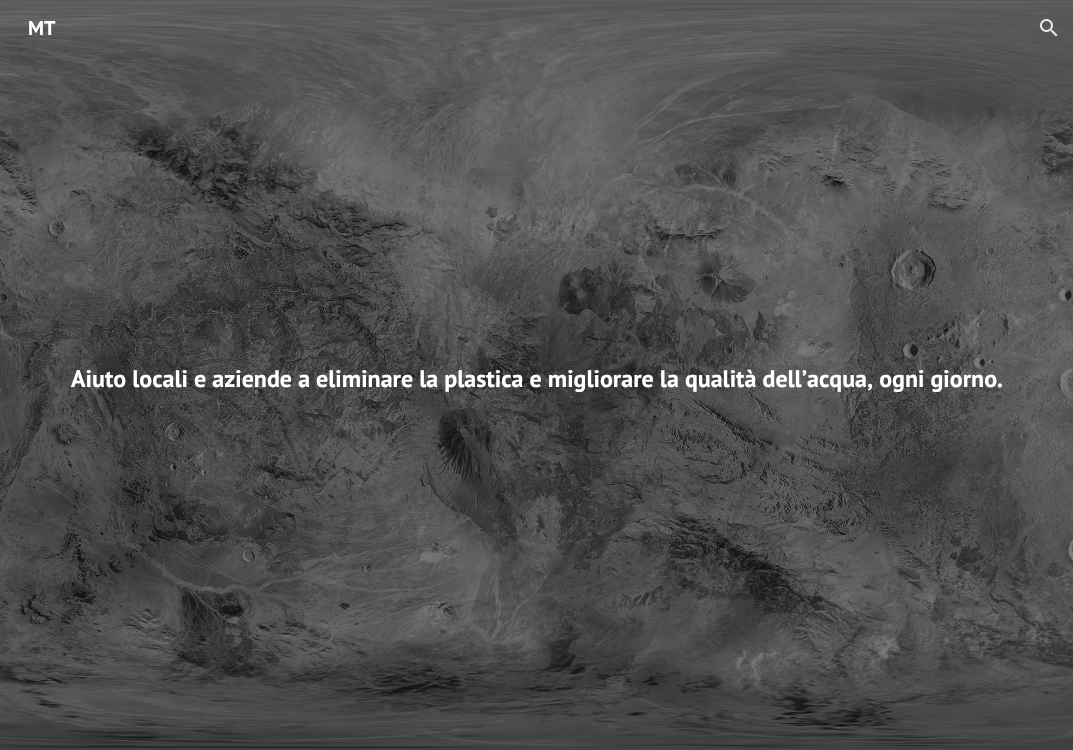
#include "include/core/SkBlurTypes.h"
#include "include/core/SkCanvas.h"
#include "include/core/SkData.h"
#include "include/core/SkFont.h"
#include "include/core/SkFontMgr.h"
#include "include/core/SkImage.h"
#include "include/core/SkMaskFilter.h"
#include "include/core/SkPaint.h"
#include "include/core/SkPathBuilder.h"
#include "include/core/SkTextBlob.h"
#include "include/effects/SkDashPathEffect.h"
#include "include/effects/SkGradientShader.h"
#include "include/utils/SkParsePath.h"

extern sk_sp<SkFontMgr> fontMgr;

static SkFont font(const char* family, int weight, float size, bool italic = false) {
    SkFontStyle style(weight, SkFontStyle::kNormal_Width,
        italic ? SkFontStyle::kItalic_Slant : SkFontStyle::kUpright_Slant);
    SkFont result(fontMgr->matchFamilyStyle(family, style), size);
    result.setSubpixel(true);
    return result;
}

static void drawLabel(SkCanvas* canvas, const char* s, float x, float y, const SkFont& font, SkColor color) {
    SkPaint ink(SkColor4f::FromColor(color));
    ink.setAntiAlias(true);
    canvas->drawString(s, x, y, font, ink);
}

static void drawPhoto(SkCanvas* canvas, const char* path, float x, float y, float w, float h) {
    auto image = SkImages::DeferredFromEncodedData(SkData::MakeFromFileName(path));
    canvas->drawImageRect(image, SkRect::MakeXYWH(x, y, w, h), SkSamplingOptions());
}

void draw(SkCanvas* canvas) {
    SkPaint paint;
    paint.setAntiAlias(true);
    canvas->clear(0xFFFFFFFF);
    drawPhoto(canvas, "assets/img2.png", 0, 0, 1073, 750);
    SkFont font1 = font("PT Sans", 700, 20);
    drawLabel(canvas, "MT", 28, 35, font1, 0xFFFFFFFF);
    drawPhoto(canvas, "assets/img1.png", 1040, 19, 18, 18);
    SkFont font2 = font("PT Sans", 700, 24);
    drawLabel(canvas, "Aiuto locali e aziende a eliminare la plastica e migliorare la qualità dell’acqua, ogni giorno.", 71, 387, font2, 0xFFFFFFFF);
}
